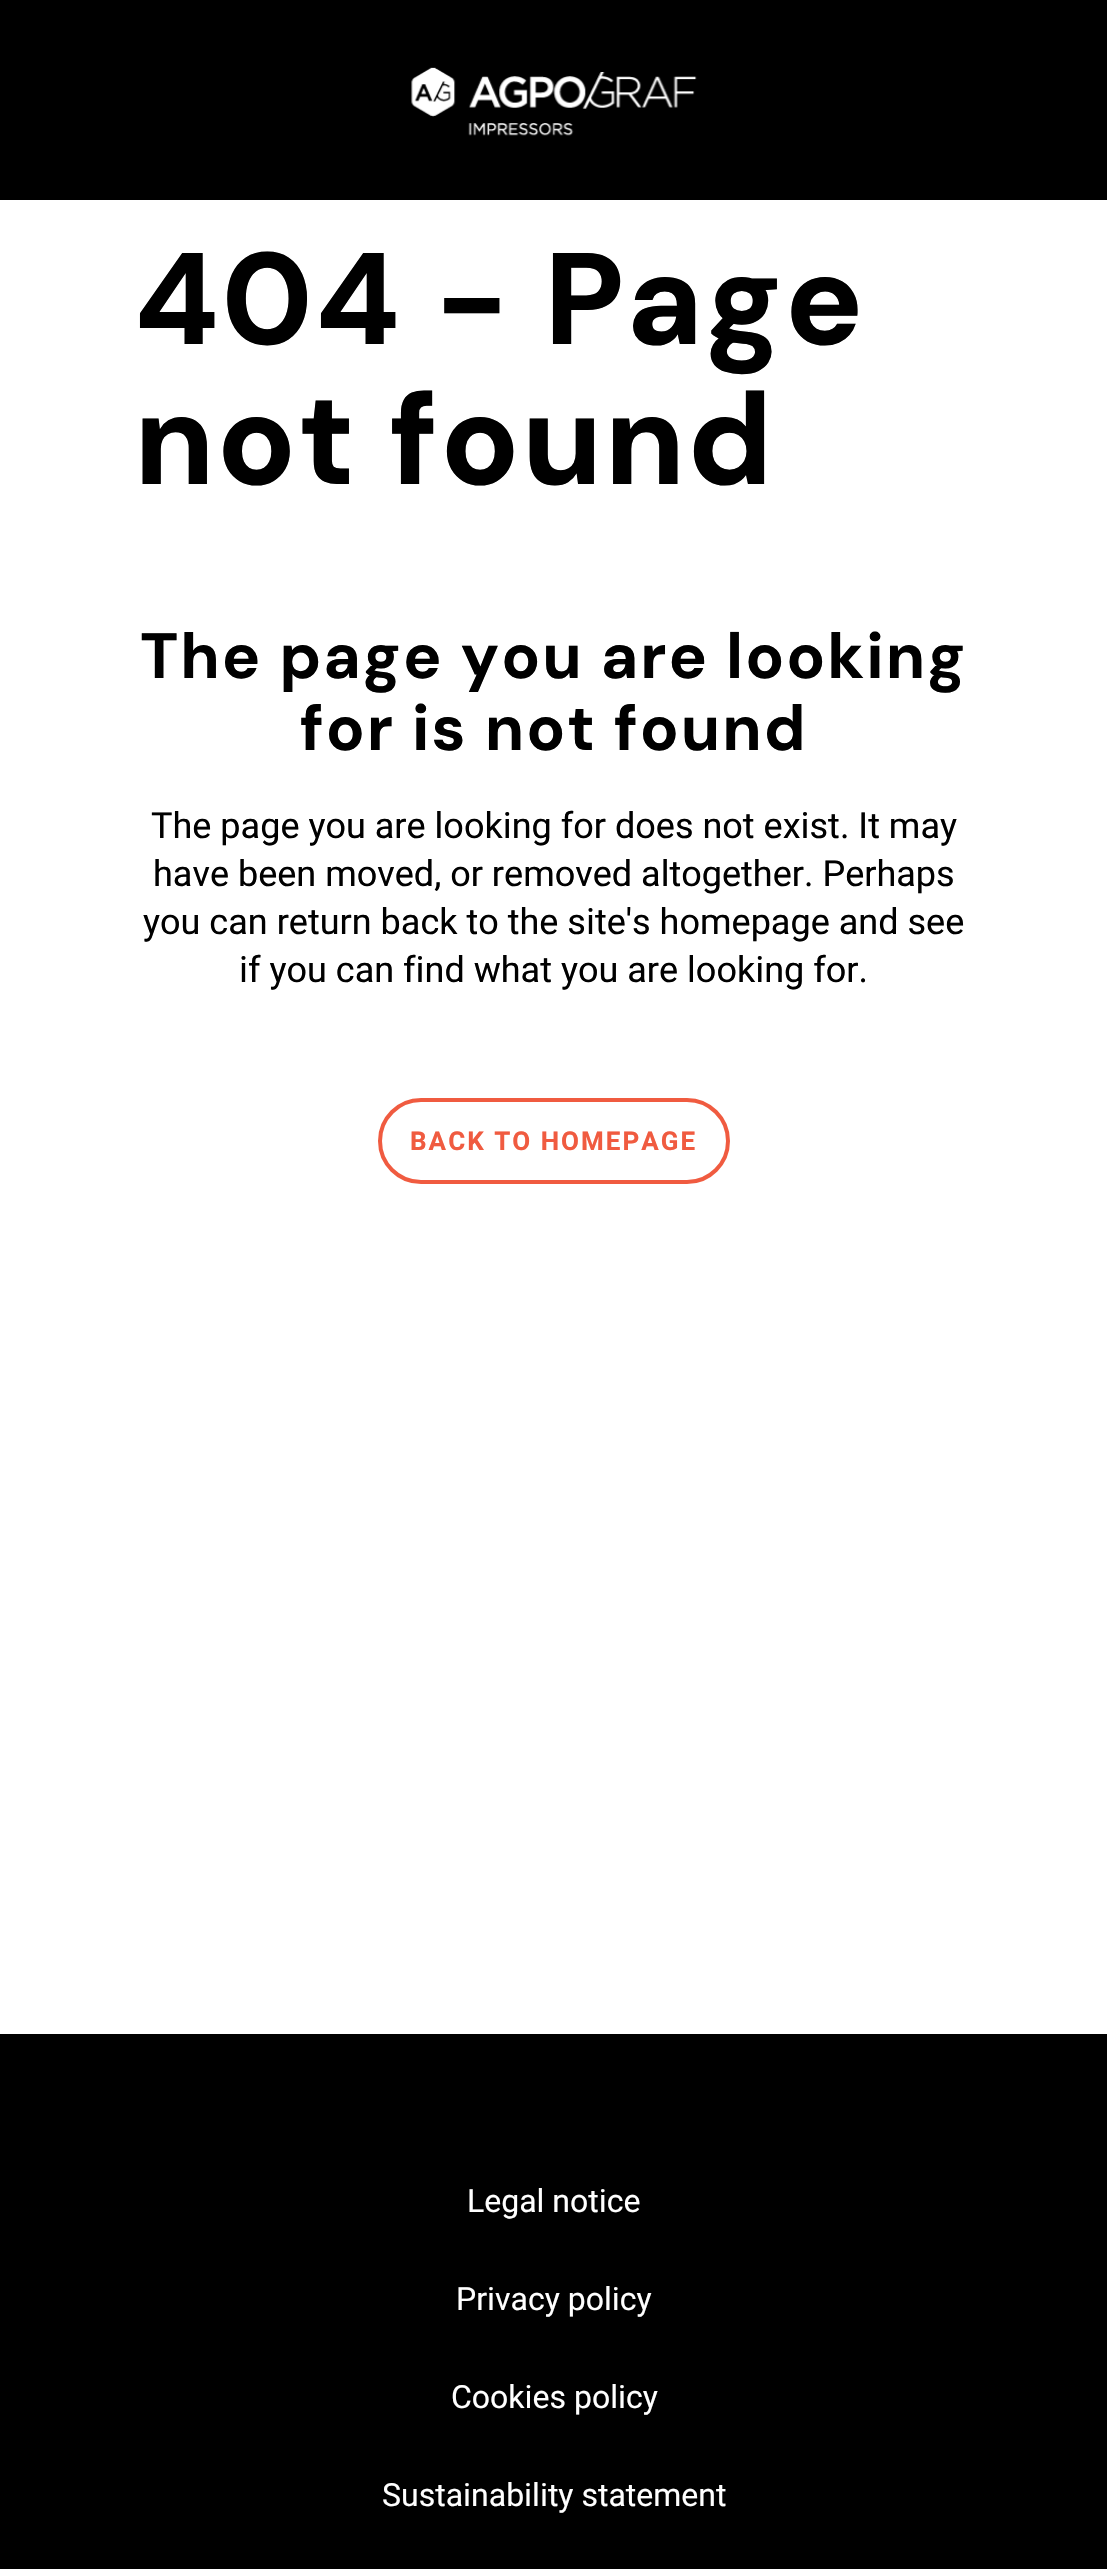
#include "include/core/SkBlurTypes.h"
#include "include/core/SkCanvas.h"
#include "include/core/SkData.h"
#include "include/core/SkFont.h"
#include "include/core/SkFontMgr.h"
#include "include/core/SkImage.h"
#include "include/core/SkMaskFilter.h"
#include "include/core/SkPaint.h"
#include "include/core/SkPathBuilder.h"
#include "include/core/SkTextBlob.h"
#include "include/effects/SkDashPathEffect.h"
#include "include/effects/SkGradientShader.h"
#include "include/utils/SkParsePath.h"

extern sk_sp<SkFontMgr> fontMgr;

static SkFont font(const char* family, int weight, float size, bool italic = false) {
    SkFontStyle style(weight, SkFontStyle::kNormal_Width,
        italic ? SkFontStyle::kItalic_Slant : SkFontStyle::kUpright_Slant);
    SkFont result(fontMgr->matchFamilyStyle(family, style), size);
    result.setSubpixel(true);
    return result;
}

static void drawLabel(SkCanvas* canvas, const char* s, float x, float y, const SkFont& font, SkColor color) {
    SkPaint ink(SkColor4f::FromColor(color));
    ink.setAntiAlias(true);
    canvas->drawString(s, x, y, font, ink);
}

static void drawTracked(SkCanvas* canvas, const char* s, float x, float y, const SkFont& font, const SkPaint& ink, float letter, float word) {
    std::vector<SkGlyphID> glyphs(font.countText(s, strlen(s), SkTextEncoding::kUTF8));
    std::vector<float> xs(glyphs.size());
    font.textToGlyphs(s, strlen(s), SkTextEncoding::kUTF8, glyphs);
    font.getXPos(glyphs, xs, x);
    float extra = 0;
    for (size_t i = 0; i < glyphs.size(); i++) {
        xs[i] += extra;
        extra += letter + word * (glyphs[i] == font.unicharToGlyph(' '));
    }
    canvas->drawTextBlob(SkTextBlob::MakeFromPosHGlyphs(glyphs, xs, y, font), 0, 0, ink);
}

static void fillRect(SkCanvas* canvas, float x, float y, float w, float h, SkColor color) {
    SkPaint ink(SkColor4f::FromColor(color));
    ink.setAntiAlias(true);
    canvas->drawRect(SkRect::MakeXYWH(x, y, w, h), ink);
}

static void drawPhoto(SkCanvas* canvas, const char* path, float x, float y, float w, float h) {
    auto image = SkImages::DeferredFromEncodedData(SkData::MakeFromFileName(path));
    canvas->drawImageRect(image, SkRect::MakeXYWH(x, y, w, h), SkSamplingOptions());
}

void draw(SkCanvas* canvas) {
    SkPaint paint;
    paint.setAntiAlias(true);
    canvas->clear(0xFFFFFFFF);
    fillRect(canvas, 0, 0, 1107, 200, 0xFF000000);
    drawPhoto(canvas, "assets/img1.png", 411, 67, 286, 69);
    SkFont font1 = font("DM Sans", 800, 130);
    paint.setColor(0xFF000000);
    drawTracked(canvas, "404 - Page", 134, 344, font1, paint, 2, 0);
    drawTracked(canvas, "not found", 134, 484, font1, paint, 2, 0);
    SkFont font2 = font("DM Sans", 700, 64);
    drawTracked(canvas, "The page you are looking", 140, 678, font2, paint, 2, 0);
    drawTracked(canvas, "for is not found", 300, 750, font2, paint, 2, 0);
    SkFont font3 = font("Heebo", 400, 36);
    drawLabel(canvas, "The page you are looking for does not exist. It may", 151, 838, font3, 0xFF000000);
    drawLabel(canvas, "have been moved, or removed altogether. Perhaps", 153, 886, font3, 0xFF000000);
    drawLabel(canvas, "you can return back to the site's homepage and see", 143, 934, font3, 0xFF000000);
    drawLabel(canvas, "if you can find what you are looking for.", 239, 982, font3, 0xFF000000);
    paint.setStroke(true);
    paint.setStrokeWidth(4);
    paint.setColor(0xFFF05B40);
    canvas->drawRoundRect(SkRect::MakeXYWH(380, 1100, 348, 82), 41, 41, paint);
    SkFont font4 = font("Heebo", 700, 26);
    paint.setStroke(false);
    drawTracked(canvas, "BACK TO HOMEPAGE", 410, 1150, font4, paint, 2, 0);
    fillRect(canvas, 0, 2034, 1107, 535, 0xFF000000);
    SkFont font5 = font("Heebo", 400, 32);
    drawLabel(canvas, "Legal notice", 467, 2212, font5, 0xFFFFFFFF);
    drawLabel(canvas, "Privacy policy", 456, 2310, font5, 0xFFFFFFFF);
    drawLabel(canvas, "Cookies policy", 451, 2408, font5, 0xFFFFFFFF);
    drawLabel(canvas, "Sustainability statement", 382, 2506, font5, 0xFFFFFFFF);
}
